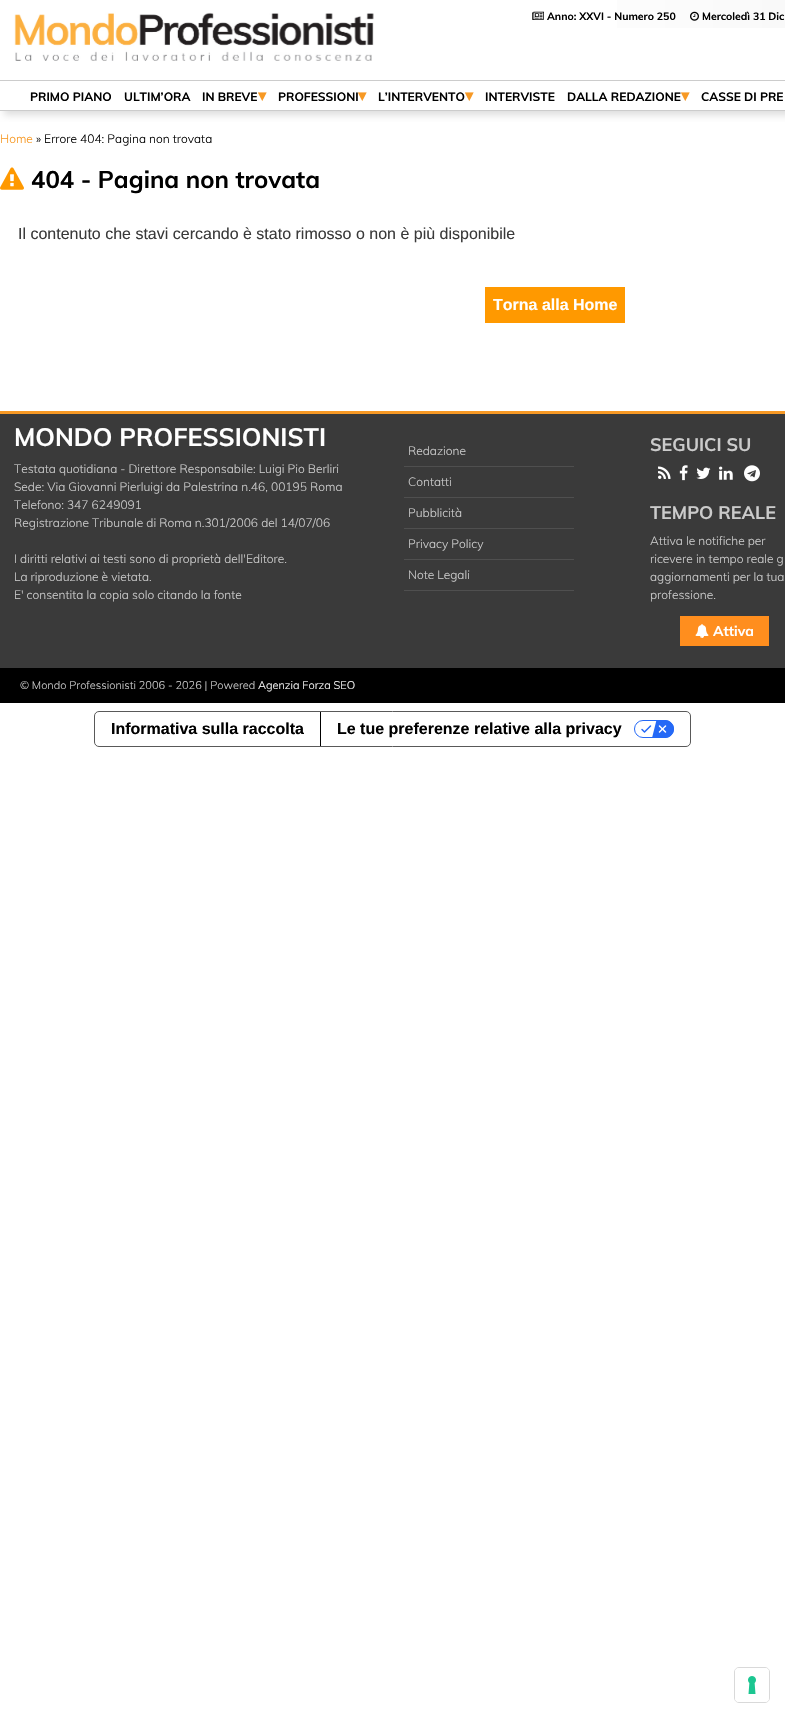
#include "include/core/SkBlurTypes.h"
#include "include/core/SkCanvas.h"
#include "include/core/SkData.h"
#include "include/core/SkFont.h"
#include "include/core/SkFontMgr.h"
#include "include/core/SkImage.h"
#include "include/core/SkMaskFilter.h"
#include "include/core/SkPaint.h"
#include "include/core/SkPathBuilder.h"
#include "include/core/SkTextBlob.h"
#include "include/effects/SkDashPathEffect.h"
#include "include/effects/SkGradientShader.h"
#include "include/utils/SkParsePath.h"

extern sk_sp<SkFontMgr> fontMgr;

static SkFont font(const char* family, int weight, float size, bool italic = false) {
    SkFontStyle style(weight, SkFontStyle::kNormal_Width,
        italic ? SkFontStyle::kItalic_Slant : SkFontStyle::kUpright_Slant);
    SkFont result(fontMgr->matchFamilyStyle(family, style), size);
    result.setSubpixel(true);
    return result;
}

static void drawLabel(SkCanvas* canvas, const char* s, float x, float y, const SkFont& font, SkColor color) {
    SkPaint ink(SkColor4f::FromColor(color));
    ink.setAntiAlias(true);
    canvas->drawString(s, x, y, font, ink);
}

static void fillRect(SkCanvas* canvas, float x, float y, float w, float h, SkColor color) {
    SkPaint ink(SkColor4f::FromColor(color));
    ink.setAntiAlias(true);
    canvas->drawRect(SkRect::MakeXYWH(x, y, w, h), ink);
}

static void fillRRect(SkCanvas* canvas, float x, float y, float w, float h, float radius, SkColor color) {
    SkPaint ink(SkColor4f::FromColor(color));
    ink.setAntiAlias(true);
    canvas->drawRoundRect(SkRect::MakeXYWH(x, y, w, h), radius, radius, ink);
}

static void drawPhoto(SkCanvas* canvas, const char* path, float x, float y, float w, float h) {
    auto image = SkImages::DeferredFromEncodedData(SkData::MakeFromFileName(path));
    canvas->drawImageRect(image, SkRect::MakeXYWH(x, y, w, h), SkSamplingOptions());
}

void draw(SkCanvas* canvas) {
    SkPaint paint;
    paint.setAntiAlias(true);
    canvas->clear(0xFFFFFFFF);
    drawPhoto(canvas, "assets/img1.png", 14, 12, 360, 49);
    {
        const SkColor colors[] = {0xFFFFFFFF, 0xFFF7F7F7, 0xFFF2F2F2};
        const float stops[] = {0, 0.64f, 1};
        const SkPoint ends[] = {{496, 14}, {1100, 14}};
        paint.setShader(SkGradientShader::MakeLinear(ends, colors, stops, 3, SkTileMode::kClamp));
        paint.setAlpha(255);
    }
    canvas->drawRect(SkRect::MakeXYWH(617, 0, 168, 28), paint);
    drawPhoto(canvas, "assets/img2.png", 532, 11, 12, 9);
    SkFont font1 = font("Muli", 700, 10.5f);
    drawLabel(canvas, "Anno: XXVI - Numero 250", 547, 20, font1, 0xFF000000);
    drawPhoto(canvas, "assets/img3.png", 690, 11, 9, 10);
    drawLabel(canvas, "Mercoledì 31 Dic", 702, 20, font1, 0xFF000000);
    canvas->save();
    canvas->clipRect(SkRect::MakeXYWH(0, 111, 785, 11));
    paint.setShader(nullptr);
    paint.setColor(0xFFDEDEDE);
    paint.setMaskFilter(SkMaskFilter::MakeBlur(kNormal_SkBlurStyle, 3.5f));
    canvas->drawRect(SkRect::MakeXYWH(4, 92, 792, 23), paint);
    paint.setMaskFilter(nullptr);
    canvas->restore();
    fillRect(canvas, 0, 80, 785, 1, 0xFFCCCCCC);
    fillRect(canvas, 0, 110, 785, 1, 0xFFCCCCCC);
    SkFont font2 = font("Muli", 700, 12);
    drawLabel(canvas, "PRIMO PIANO", 30, 101, font2, 0xFF000000);
    drawLabel(canvas, "ULTIM’ORA", 124, 101, font2, 0xFF000000);
    drawLabel(canvas, "IN BREVE", 202, 101, font2, 0xFF000000);
    SkFont font3 = font("DejaVu Sans", 700, 16);
    drawLabel(canvas, "▾", 258, 101, font3, 0xFFF79925);
    drawLabel(canvas, "PROFESSIONI", 278, 101, font2, 0xFF000000);
    drawLabel(canvas, "▾", 358, 101, font3, 0xFFF79925);
    drawLabel(canvas, "L’INTERVENTO", 378, 101, font2, 0xFF000000);
    drawLabel(canvas, "▾", 465, 101, font3, 0xFFF79925);
    drawLabel(canvas, "INTERVISTE", 485, 101, font2, 0xFF000000);
    drawLabel(canvas, "DALLA REDAZIONE", 567, 101, font2, 0xFF000000);
    drawLabel(canvas, "▾", 681, 101, font3, 0xFFF79925);
    drawLabel(canvas, "CASSE DI PRE", 701, 101, font2, 0xFF000000);
    SkFont font4 = font("Muli", 300, 12);
    drawLabel(canvas, "Home", 0, 143, font4, 0xFFF79925);
    drawLabel(canvas, "» Errore 404: Pagina non trovata", 36, 143, font4, 0xFF000000);
    drawPhoto(canvas, "assets/img4.png", 0, 167, 24, 23);
    SkFont font5 = font("Muli", 700, 24);
    drawLabel(canvas, "404 - Pagina non trovata", 31, 188, font5, 0xFF000000);
    SkFont font6 = font("Liberation Sans", 400, 16);
    drawLabel(canvas, "Il contenuto che stavi cercando è stato rimosso o non è più disponibile", 18, 239, font6, 0xFF3A3A3A);
    fillRect(canvas, 485, 287, 140, 36, 0xFFFF9900);
    SkFont font7 = font("Liberation Sans", 700, 16);
    drawLabel(canvas, "Torna alla Home", 493, 310, font7, 0xFFFFFFFF);
    fillRect(canvas, 0, 414, 785, 254, 0xFF3A3A3A);
    fillRect(canvas, 0, 411, 785, 3, 0xFFF79925);
    SkFont font8 = font("Muli", 700, 25);
    drawLabel(canvas, "MONDO PROFESSIONISTI", 14, 446, font8, 0xFFFFFFFF);
    drawLabel(canvas, "Testata quotidiana - Direttore Responsabile: Luigi Pio Berliri", 14, 473, font4, 0xFFCBCBCB);
    drawLabel(canvas, "Sede: Via Giovanni Pierluigi da Palestrina n.46, 00195 Roma", 14, 491, font4, 0xFFCBCBCB);
    drawLabel(canvas, "Telefono: 347 6249091", 14, 509, font4, 0xFFCBCBCB);
    drawLabel(canvas, "Registrazione Tribunale di Roma n.301/2006 del 14/07/06", 14, 527, font4, 0xFFCBCBCB);
    drawLabel(canvas, "I diritti relativi ai testi sono di proprietà dell'Editore.", 14, 563, font4, 0xFFCBCBCB);
    drawLabel(canvas, "La riproduzione è vietata.", 14, 581, font4, 0xFFCBCBCB);
    drawLabel(canvas, "E' consentita la copia solo citando la fonte", 14, 599, font4, 0xFFCBCBCB);
    fillRect(canvas, 404, 466, 170, 1, 0xFF4F4F4F);
    drawLabel(canvas, "Redazione", 408, 455, font4, 0xFFCBCBCB);
    fillRect(canvas, 404, 497, 170, 1, 0xFF4F4F4F);
    drawLabel(canvas, "Contatti", 408, 486, font4, 0xFFCBCBCB);
    fillRect(canvas, 404, 528, 170, 1, 0xFF4F4F4F);
    drawLabel(canvas, "Pubblicità", 408, 517, font4, 0xFFCBCBCB);
    fillRect(canvas, 404, 559, 170, 1, 0xFF4F4F4F);
    drawLabel(canvas, "Privacy Policy", 408, 548, font4, 0xFFCBCBCB);
    fillRect(canvas, 404, 590, 170, 1, 0xFF4F4F4F);
    drawLabel(canvas, "Note Legali", 408, 579, font4, 0xFFCBCBCB);
    SkFont font9 = font("Muli", 700, 18);
    drawLabel(canvas, "SEGUICI SU", 650, 451, font9, 0xFFCBCBCB);
    drawPhoto(canvas, "assets/img5.png", 658, 466, 13, 13);
    drawPhoto(canvas, "assets/img6.png", 679, 465, 9, 16);
    drawPhoto(canvas, "assets/img7.png", 696, 467, 15, 12);
    drawPhoto(canvas, "assets/img8.png", 719, 466, 14, 14);
    drawPhoto(canvas, "assets/img9.png", 744, 465, 16, 17);
    drawLabel(canvas, "TEMPO REALE", 650, 519, font9, 0xFFCBCBCB);
    drawLabel(canvas, "Attiva le notifiche per", 650, 545, font4, 0xFFCBCBCB);
    drawLabel(canvas, "ricevere in tempo reale g", 650, 563, font4, 0xFFCBCBCB);
    drawLabel(canvas, "aggiornamenti per la tua", 650, 581, font4, 0xFFCBCBCB);
    drawLabel(canvas, "professione.", 650, 599, font4, 0xFFCBCBCB);
    fillRect(canvas, 680, 616, 89, 30, 0xFFFF8E1E);
    drawPhoto(canvas, "assets/img10.png", 695, 624, 14, 14);
    SkFont font10 = font("Muli", 700, 14);
    drawLabel(canvas, "Attiva", 713, 636, font10, 0xFFFFFFFF);
    fillRect(canvas, 0, 668, 785, 35, 0xFF000000);
    SkFont font11 = font("Muli", 300, 11);
    drawLabel(canvas, "© Mondo Professionisti 2006 - 2026 | Powered", 20, 689, font11, 0xFFCBCBCB);
    drawLabel(canvas, "Agenzia Forza SEO", 258, 689, font11, 0xFFFFFFFF);
    paint.setStroke(true);
    paint.setStrokeWidth(1);
    paint.setColor(0xFF595959);
    canvas->drawRoundRect(SkRect::MakeXYWH(94.5f, 711.5f, 596, 35), 4.5f, 4.5f, paint);
    drawLabel(canvas, "Informativa sulla raccolta", 111, 734, font7, 0xFF000000);
    fillRect(canvas, 320, 712, 1, 34, 0xFF000000);
    drawLabel(canvas, "Le tue preferenze relative alla privacy", 337, 734, font7, 0xFF000000);
    drawPhoto(canvas, "assets/img11.png", 634, 720, 40, 18);
    paint.setColor(0xFFD9D9D9);
    canvas->drawRoundRect(SkRect::MakeXYWH(734.5f, 1667.5f, 35, 35), 4.5f, 4.5f, paint);
    fillRRect(canvas, 735, 1668, 34, 34, 4, 0xFFFFFFFF);
    drawPhoto(canvas, "assets/img12.png", 748, 1676, 8, 18);
}
